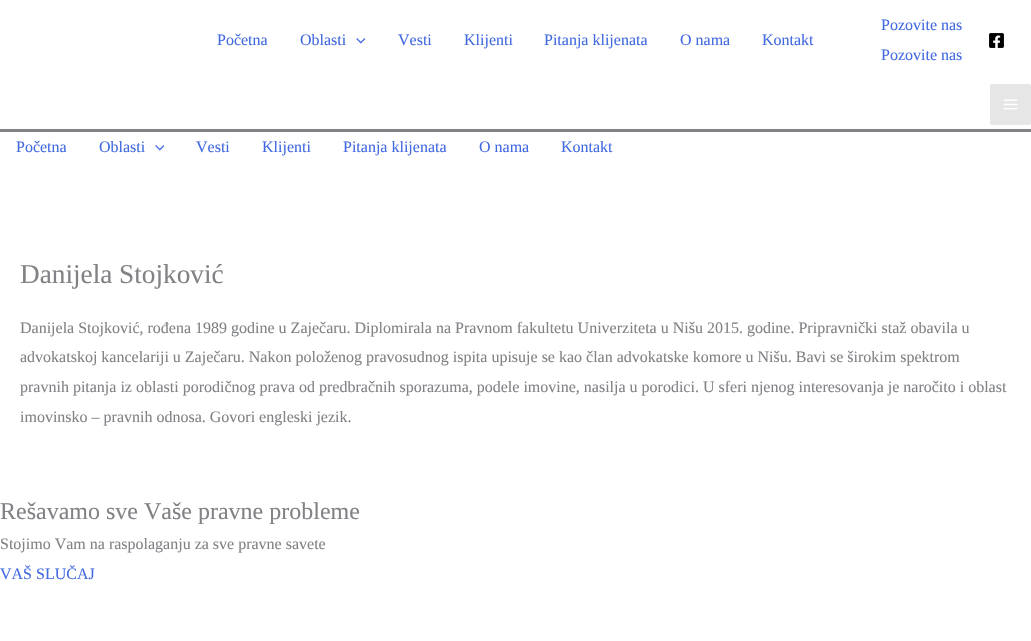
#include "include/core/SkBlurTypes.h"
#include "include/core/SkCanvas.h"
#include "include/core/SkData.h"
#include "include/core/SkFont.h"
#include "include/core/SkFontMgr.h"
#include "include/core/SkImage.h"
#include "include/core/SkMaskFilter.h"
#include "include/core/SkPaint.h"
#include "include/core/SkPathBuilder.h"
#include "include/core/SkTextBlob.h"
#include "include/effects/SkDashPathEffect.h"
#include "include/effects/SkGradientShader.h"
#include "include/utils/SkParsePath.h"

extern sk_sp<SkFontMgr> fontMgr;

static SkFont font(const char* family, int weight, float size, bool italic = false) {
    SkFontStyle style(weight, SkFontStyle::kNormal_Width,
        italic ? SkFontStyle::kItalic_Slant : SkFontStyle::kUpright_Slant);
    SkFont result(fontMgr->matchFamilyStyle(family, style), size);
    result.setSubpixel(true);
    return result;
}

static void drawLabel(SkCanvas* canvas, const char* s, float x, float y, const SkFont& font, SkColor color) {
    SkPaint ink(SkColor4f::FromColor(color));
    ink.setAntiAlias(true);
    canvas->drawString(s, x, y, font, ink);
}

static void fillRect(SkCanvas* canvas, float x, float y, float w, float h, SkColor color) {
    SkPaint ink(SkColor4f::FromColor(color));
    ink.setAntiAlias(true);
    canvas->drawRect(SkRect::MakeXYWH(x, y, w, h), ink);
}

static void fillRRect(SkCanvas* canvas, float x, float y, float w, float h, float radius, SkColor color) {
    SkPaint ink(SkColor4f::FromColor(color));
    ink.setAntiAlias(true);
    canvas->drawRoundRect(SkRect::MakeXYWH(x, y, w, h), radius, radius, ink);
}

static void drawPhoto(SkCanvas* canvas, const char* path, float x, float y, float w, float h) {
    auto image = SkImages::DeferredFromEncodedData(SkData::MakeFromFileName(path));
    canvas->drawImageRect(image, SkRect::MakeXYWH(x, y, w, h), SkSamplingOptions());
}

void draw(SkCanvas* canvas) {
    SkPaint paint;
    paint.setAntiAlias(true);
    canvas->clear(0xFFFFFFFF);
    SkFont font1 = font("Liberation Serif", 400, 16);
    drawLabel(canvas, "Početna", 217, 45, font1, 0xFF4169E1);
    drawLabel(canvas, "Oblasti", 300, 45, font1, 0xFF4169E1);
    drawPhoto(canvas, "assets/img1.png", 356, 38, 10, 6);
    drawLabel(canvas, "Vesti", 398, 45, font1, 0xFF4169E1);
    drawLabel(canvas, "Klijenti", 464, 45, font1, 0xFF4169E1);
    drawLabel(canvas, "Pitanja klijenata", 544, 45, font1, 0xFF4169E1);
    drawLabel(canvas, "O nama", 680, 45, font1, 0xFF4169E1);
    drawLabel(canvas, "Kontakt", 762, 45, font1, 0xFF4169E1);
    drawLabel(canvas, "Pozovite nas", 881, 30, font1, 0xFF4169E1);
    drawLabel(canvas, "Pozovite nas", 881, 60, font1, 0xFF4169E1);
    drawPhoto(canvas, "assets/img2.png", 989, 33, 15, 15);
    fillRect(canvas, 0, 129, 1031, 3, 0xFF808285);
    fillRRect(canvas, 990, 84, 41, 41, 2, 0xFFE6E6E6);
    drawPhoto(canvas, "assets/img3.png", 1003, 99, 15, 11);
    drawLabel(canvas, "Početna", 16, 152, font1, 0xFF4169E1);
    drawLabel(canvas, "Oblasti", 99, 152, font1, 0xFF4169E1);
    drawPhoto(canvas, "assets/img4.png", 155, 145, 9, 6);
    drawLabel(canvas, "Vesti", 196, 152, font1, 0xFF4169E1);
    drawLabel(canvas, "Klijenti", 262, 152, font1, 0xFF4169E1);
    drawLabel(canvas, "Pitanja klijenata", 343, 152, font1, 0xFF4169E1);
    drawLabel(canvas, "O nama", 479, 152, font1, 0xFF4169E1);
    drawLabel(canvas, "Kontakt", 561, 152, font1, 0xFF4169E1);
    SkFont font2 = font("Liberation Serif", 400, 27.25f);
    drawLabel(canvas, "Danijela Stojković", 20, 283, font2, 0xFF808285);
    drawLabel(canvas, "Danijela Stojković, rođena 1989 godine u Zaječaru. Diplomirala na Pravnom fakultetu Univerziteta u Nišu 2015. godine. Pripravnički staž obavila u", 20, 333, font1, 0xFF808285);
    drawLabel(canvas, "advokatskoj kancelariji u Zaječaru. Nakon položenog pravosudnog ispita upisuje se kao član advokatske komore u Nišu. Bavi se širokim spektrom", 20, 362, font1, 0xFF808285);
    drawLabel(canvas, "pravnih pitanja iz oblasti porodičnog prava od predbračnih sporazuma, podele imovine, nasilja u porodici. U sferi njenog interesovanja je naročito i oblast", 20, 392, font1, 0xFF808285);
    drawLabel(canvas, "imovinsko – pravnih odnosa. Govori engleski jezik.", 20, 422, font1, 0xFF808285);
    SkFont font3 = font("Liberation Serif", 400, 24);
    drawLabel(canvas, "Rešavamo sve Vaše pravne probleme", 0, 519, font3, 0xFF808285);
    drawLabel(canvas, "Stojimo Vam na raspolaganju za sve pravne savete", 0, 549, font1, 0xFF808285);
    drawLabel(canvas, "VAŠ SLUČAJ", 0, 579, font1, 0xFF4169E1);
}
